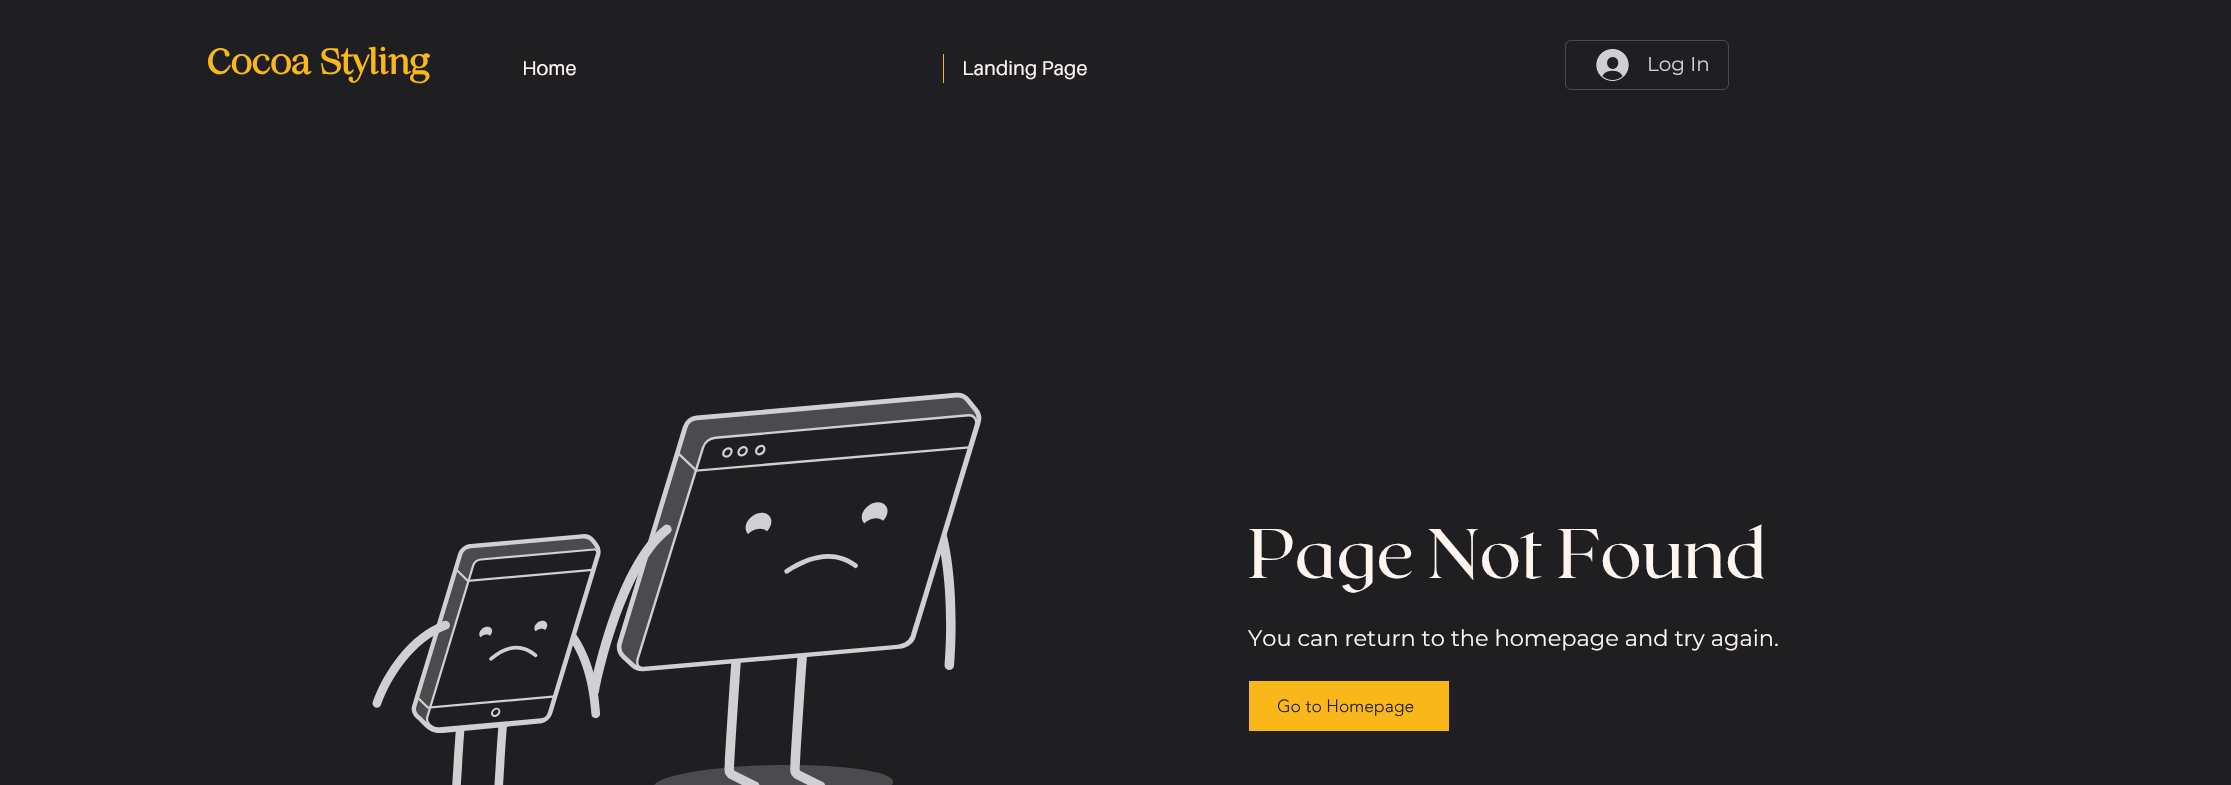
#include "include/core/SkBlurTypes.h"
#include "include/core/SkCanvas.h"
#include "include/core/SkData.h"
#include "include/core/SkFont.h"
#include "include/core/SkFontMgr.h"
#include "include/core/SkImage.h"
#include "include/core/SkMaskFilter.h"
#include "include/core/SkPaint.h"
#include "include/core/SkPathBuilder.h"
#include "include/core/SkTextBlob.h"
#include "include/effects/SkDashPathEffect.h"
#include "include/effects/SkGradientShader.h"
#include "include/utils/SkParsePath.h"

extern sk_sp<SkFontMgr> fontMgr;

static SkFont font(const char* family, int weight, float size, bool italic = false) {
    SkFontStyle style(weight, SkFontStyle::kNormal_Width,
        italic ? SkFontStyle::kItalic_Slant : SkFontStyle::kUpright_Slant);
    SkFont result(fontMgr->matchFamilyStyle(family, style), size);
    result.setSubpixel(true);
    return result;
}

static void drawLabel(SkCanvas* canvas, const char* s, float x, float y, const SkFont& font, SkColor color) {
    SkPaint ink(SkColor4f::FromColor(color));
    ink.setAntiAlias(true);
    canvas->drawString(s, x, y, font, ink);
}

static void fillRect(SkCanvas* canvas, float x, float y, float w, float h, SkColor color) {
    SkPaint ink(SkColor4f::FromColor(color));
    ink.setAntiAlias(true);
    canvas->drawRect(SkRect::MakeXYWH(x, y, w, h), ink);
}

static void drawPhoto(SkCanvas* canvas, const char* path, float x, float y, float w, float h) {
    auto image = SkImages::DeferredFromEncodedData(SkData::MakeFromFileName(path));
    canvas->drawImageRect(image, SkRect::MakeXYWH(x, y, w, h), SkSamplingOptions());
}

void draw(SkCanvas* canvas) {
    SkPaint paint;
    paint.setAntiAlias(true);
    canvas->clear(0xFF1F1F21);
    SkFont font1 = font("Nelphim", 700, 35);
    drawLabel(canvas, "Cocoa Styling", 207, 74, font1, 0xFFF9B71A);
    SkFont font2 = font("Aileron", 400, 20);
    drawLabel(canvas, "Home", 522, 75, font2, 0xFFFFF5F0);
    fillRect(canvas, 943, 54, 1, 29, 0xFFF9B71A);
    drawLabel(canvas, "Landing Page", 962, 75, font2, 0xFFFFF5F0);
    paint.setStroke(true);
    paint.setStrokeWidth(1);
    paint.setColor(0xFF4B4B4D);
    canvas->drawRoundRect(SkRect::MakeXYWH(1565.5f, 40.5f, 163, 49), 5.5f, 5.5f, paint);
    drawPhoto(canvas, "assets/img1.png", 1596, 49, 33, 32);
    SkFont font3 = font("Montserrat", 400, 20);
    drawLabel(canvas, "Log In", 1647, 71, font3, 0xFFD0D0D3);
    drawPhoto(canvas, "assets/img2.png", 372, 392, 610, 393);
    SkFont font4 = font("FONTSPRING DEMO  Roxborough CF", 400, 70);
    drawLabel(canvas, "Page Not Found", 1248, 578, font4, 0xFFFFF5F0);
    SkFont font5 = font("Montserrat", 400, 22.5f);
    drawLabel(canvas, "You can return to the homepage and try again.", 1248, 646, font5, 0xFFFFF5F0);
    fillRect(canvas, 1249, 681, 200, 50, 0xFFF9B71A);
    canvas->save();
    canvas->clipRect(SkRect::MakeXYWH(1278, 695, 137, 21));
    SkFont font6 = font("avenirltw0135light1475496", 300, 17.5f);
    drawLabel(canvas, "Go to Homepage", 1277, 712, font6, 0xFF1F1F21);
    canvas->restore();
}
